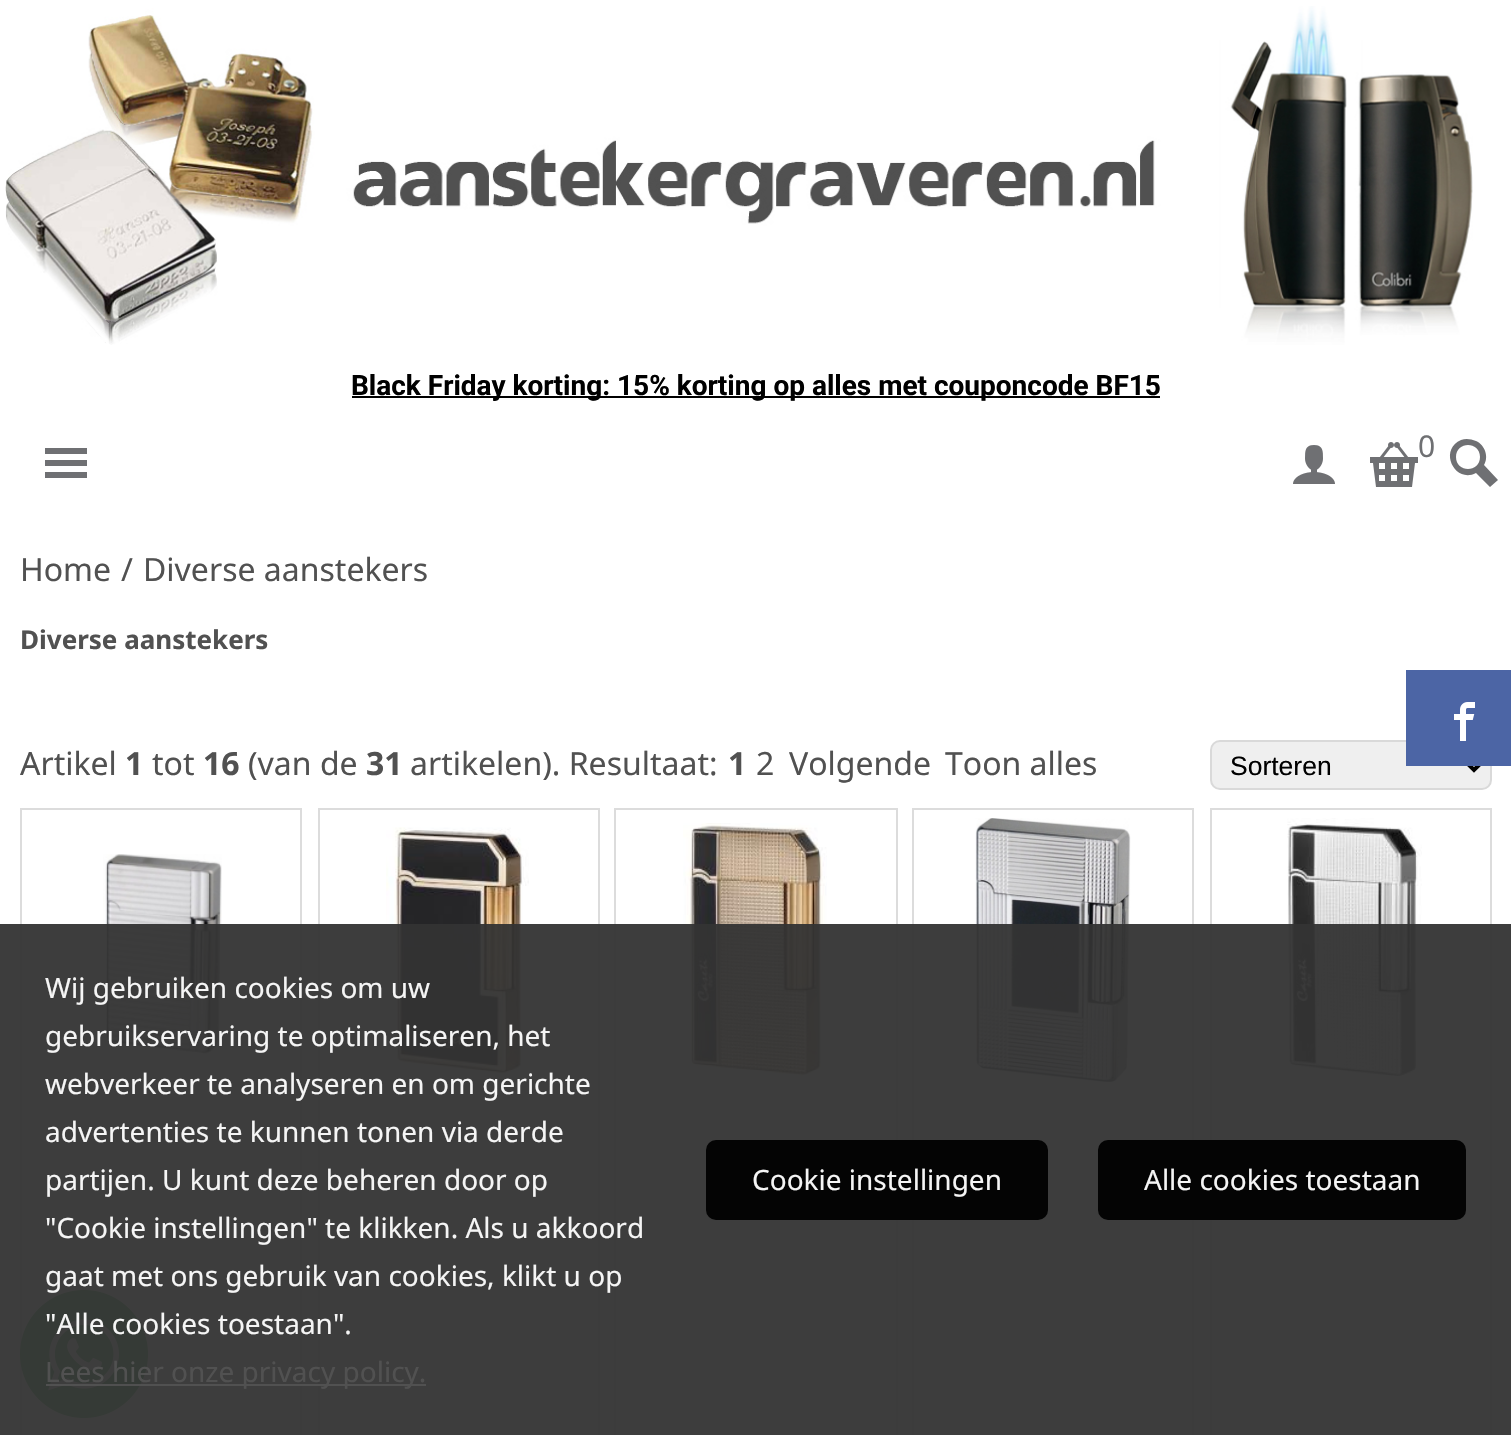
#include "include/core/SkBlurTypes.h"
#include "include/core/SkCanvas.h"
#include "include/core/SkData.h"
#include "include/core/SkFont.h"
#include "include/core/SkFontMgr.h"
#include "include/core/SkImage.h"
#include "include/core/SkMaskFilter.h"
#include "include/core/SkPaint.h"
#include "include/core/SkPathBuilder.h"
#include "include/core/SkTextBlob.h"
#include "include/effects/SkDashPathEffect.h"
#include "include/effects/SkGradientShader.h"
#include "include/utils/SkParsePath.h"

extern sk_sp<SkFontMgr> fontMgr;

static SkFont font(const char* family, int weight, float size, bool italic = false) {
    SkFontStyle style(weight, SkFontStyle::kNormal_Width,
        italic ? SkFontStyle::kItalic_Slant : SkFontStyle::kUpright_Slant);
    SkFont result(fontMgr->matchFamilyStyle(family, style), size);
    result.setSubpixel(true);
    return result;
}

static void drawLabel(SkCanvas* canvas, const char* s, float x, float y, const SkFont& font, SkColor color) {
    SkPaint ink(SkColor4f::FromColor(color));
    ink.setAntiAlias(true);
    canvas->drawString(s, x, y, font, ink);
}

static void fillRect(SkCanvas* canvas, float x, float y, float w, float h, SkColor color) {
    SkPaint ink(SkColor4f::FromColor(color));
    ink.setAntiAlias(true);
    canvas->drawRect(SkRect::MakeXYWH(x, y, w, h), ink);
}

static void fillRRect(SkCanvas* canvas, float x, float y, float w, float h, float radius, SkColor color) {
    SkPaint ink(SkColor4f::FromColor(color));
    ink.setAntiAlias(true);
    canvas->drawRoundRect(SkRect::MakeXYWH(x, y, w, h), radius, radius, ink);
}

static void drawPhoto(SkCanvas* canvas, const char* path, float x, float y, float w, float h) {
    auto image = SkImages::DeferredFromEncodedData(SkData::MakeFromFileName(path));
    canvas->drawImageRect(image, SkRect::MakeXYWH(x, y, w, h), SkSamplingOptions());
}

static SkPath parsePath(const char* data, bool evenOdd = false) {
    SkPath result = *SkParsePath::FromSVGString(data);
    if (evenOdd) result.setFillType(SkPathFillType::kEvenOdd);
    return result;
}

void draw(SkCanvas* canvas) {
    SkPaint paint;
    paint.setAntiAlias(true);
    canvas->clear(0xFFFFFFFF);
    drawPhoto(canvas, "assets/img1.png", 5, 6, 1468, 339);
    fillRect(canvas, 352, 396, 808, 2, 0xFF000000);
    SkFont font1 = font("Roboto", 700, 28);
    drawLabel(canvas, "Black Friday korting: 15% korting op alles met couponcode BF15", 351, 395, font1, 0xFF000000);
    paint.setColor(0xFF6F7073);
    canvas->drawPath(parsePath("M45 448H87V454H45ZM45 460H87V466H45ZM45 472H87V478H45Z"), paint);
    drawPhoto(canvas, "assets/img2.png", 1293, 445, 42, 39);
    drawPhoto(canvas, "assets/img3.png", 1370, 442, 48, 45);
    SkFont font2 = font("Noto Sans", 400, 30);
    drawLabel(canvas, "0", 1418, 457, font2, 0xFF6F7073);
    canvas->drawPath(parsePath("M1498 480L1484 465C1489 457 1485 445 1476 441C1471 439 1466 438 1461 440C1438 450 1455 484 1476 473L1490 487ZM1456 457C1456 441 1480 441 1480 457C1480 473 1456 473 1456 457Z"), paint);
    SkFont font3 = font("Noto Sans", 400, 32);
    drawLabel(canvas, "Home", 20, 581, font3, 0xFF515151);
    drawLabel(canvas, "/", 121, 581, font3, 0xFF515151);
    drawLabel(canvas, "Diverse aanstekers", 143, 581, font3, 0xFF515151);
    SkFont font4 = font("Noto Sans", 700, 26);
    drawLabel(canvas, "Diverse aanstekers", 20, 649, font4, 0xFF515151);
    drawLabel(canvas, "Artikel", 20, 775, font3, 0xFF515151);
    SkFont font5 = font("Noto Sans", 700, 32);
    drawLabel(canvas, "1", 125, 775, font5, 0xFF515151);
    drawLabel(canvas, "tot", 152, 775, font3, 0xFF515151);
    drawLabel(canvas, "16", 203, 775, font5, 0xFF515151);
    drawLabel(canvas, "(van de", 248, 775, font3, 0xFF515151);
    drawLabel(canvas, "31", 366, 775, font5, 0xFF515151);
    drawLabel(canvas, "artikelen). Resultaat:", 410, 775, font3, 0xFF515151);
    drawLabel(canvas, "1", 728, 775, font5, 0xFF515151);
    drawLabel(canvas, "2", 756, 775, font3, 0xFF515151);
    drawLabel(canvas, "Volgende", 789, 775, font3, 0xFF515151);
    drawLabel(canvas, "Toon alles", 945, 775, font3, 0xFF515151);
    paint.setColor(0xFFEFEFEF);
    canvas->drawRoundRect(SkRect::MakeXYWH(1211, 741, 280, 48), 9, 9, paint);
    paint.setStroke(true);
    paint.setStrokeWidth(2);
    paint.setColor(0xFFD9D9D9);
    canvas->drawRoundRect(SkRect::MakeXYWH(1211, 741, 280, 48), 9, 9, paint);
    paint.setStrokeWidth(4);
    paint.setColor(0xFF000000);
    canvas->drawPath(parsePath("M1466 762L1474 770L1482 762"), paint);
    SkFont font6 = font("Liberation Sans", 400, 26.5f);
    drawLabel(canvas, "Sorteren", 1230, 775, font6, 0xFF000000);
    paint.setStrokeWidth(2);
    paint.setColor(0xFFDCDCDC);
    canvas->drawRect(SkRect::MakeXYWH(21, 809, 280, 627), paint);
    drawPhoto(canvas, "assets/img4.png", 103, 854, 119, 201);
    canvas->drawRect(SkRect::MakeXYWH(319, 809, 280, 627), paint);
    drawPhoto(canvas, "assets/img5.png", 386, 827, 143, 253);
    canvas->drawRect(SkRect::MakeXYWH(615, 809, 282, 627), paint);
    drawPhoto(canvas, "assets/img6.png", 683, 823, 144, 257);
    canvas->drawRect(SkRect::MakeXYWH(913, 809, 280, 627), paint);
    drawPhoto(canvas, "assets/img7.png", 975, 818, 156, 264);
    canvas->drawRect(SkRect::MakeXYWH(1211, 809, 280, 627), paint);
    drawPhoto(canvas, "assets/img8.png", 1287, 818, 135, 261);
    fillRect(canvas, 1406, 670, 105, 96, 0xFF4C65A5);
    drawPhoto(canvas, "assets/img9.png", 1454, 702, 21, 39);
    drawPhoto(canvas, "assets/img10.png", 20, 1290, 128, 128);
    fillRect(canvas, 0, 924, 1511, 511, 0xF2333333);
    SkFont font7 = font("Noto Sans", 400, 28);
    drawLabel(canvas, "Wij gebruiken cookies om uw", 45, 998, font7, 0xFFF5F5F5);
    drawLabel(canvas, "gebruikservaring te optimaliseren, het", 45, 1046, font7, 0xFFF5F5F5);
    drawLabel(canvas, "webverkeer te analyseren en om gerichte", 45, 1094, font7, 0xFFF5F5F5);
    drawLabel(canvas, "advertenties te kunnen tonen via derde", 45, 1142, font7, 0xFFF5F5F5);
    drawLabel(canvas, "partijen. U kunt deze beheren door op", 45, 1190, font7, 0xFFF5F5F5);
    drawLabel(canvas, "\"Cookie instellingen\" te klikken. Als u akkoord", 45, 1238, font7, 0xFFF5F5F5);
    drawLabel(canvas, "gaat met ons gebruik van cookies, klikt u op", 45, 1286, font7, 0xFFF5F5F5);
    drawLabel(canvas, "\"Alle cookies toestaan\".", 45, 1334, font7, 0xFFF5F5F5);
    fillRect(canvas, 46, 1384, 380, 2, 0xF2515151);
    drawLabel(canvas, "Lees hier onze privacy policy.", 45, 1382, font7, 0xFF515151);
    fillRRect(canvas, 706, 1140, 342, 80, 10, 0xF2000000);
    drawLabel(canvas, "Cookie instellingen", 752, 1190, font7, 0xFFF5F5F5);
    fillRRect(canvas, 1098, 1140, 368, 80, 10, 0xF2000000);
    drawLabel(canvas, "Alle cookies toestaan", 1144, 1190, font7, 0xFFF5F5F5);
}
